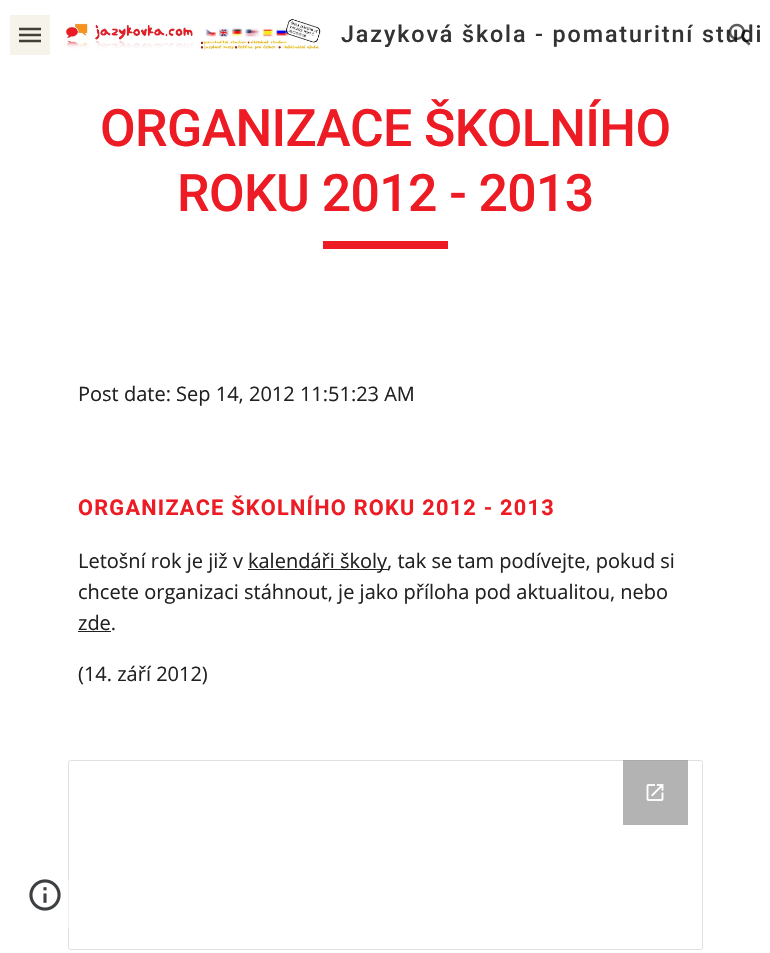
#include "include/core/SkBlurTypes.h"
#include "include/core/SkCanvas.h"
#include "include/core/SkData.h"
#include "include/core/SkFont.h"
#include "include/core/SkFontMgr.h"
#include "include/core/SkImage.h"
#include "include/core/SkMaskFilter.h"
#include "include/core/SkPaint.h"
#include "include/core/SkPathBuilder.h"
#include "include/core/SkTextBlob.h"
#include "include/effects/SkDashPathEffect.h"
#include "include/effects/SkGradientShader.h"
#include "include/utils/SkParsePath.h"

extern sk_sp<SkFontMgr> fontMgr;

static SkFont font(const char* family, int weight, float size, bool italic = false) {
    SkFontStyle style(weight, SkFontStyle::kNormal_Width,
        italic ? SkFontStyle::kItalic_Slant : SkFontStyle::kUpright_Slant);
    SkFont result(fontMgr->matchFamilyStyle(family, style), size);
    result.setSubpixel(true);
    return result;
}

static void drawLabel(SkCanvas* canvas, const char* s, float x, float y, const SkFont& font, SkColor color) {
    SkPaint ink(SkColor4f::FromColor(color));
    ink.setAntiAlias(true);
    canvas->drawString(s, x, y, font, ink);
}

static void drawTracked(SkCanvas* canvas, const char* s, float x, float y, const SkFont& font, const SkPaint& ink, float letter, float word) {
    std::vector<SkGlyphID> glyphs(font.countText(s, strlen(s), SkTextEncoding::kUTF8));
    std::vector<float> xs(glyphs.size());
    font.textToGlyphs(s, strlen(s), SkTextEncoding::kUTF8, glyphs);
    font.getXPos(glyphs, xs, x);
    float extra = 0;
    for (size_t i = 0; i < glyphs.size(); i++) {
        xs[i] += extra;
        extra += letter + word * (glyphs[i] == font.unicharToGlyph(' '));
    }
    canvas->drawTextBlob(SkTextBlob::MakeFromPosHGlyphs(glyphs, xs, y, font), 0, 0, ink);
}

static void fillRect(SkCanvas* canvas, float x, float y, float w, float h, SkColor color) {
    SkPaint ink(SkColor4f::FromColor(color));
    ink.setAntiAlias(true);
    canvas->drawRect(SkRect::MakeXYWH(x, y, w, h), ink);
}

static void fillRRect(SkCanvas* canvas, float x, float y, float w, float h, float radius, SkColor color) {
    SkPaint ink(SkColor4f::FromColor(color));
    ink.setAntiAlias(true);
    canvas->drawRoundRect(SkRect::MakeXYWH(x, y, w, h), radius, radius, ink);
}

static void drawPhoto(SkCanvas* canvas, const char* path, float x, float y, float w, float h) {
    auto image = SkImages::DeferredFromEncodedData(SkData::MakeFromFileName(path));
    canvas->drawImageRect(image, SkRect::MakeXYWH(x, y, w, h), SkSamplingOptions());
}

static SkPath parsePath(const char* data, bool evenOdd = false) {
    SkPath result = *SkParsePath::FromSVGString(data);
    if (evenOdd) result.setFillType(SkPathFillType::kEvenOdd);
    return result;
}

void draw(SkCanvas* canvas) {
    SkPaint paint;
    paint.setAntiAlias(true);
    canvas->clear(0xFFFFFFFF);
    fillRect(canvas, 10, 15, 40, 40, 0xFFF6F3EA);
    paint.setStroke(true);
    paint.setStrokeWidth(2.5f);
    paint.setColor(0xFF433F37);
    canvas->drawPath(parsePath("M19 29H41M19 35H41M19 41H41"), paint);
    SkFont font1 = font("Roboto", 500, 23.3f);
    paint.setStroke(false);
    paint.setColor(0xFF333333);
    drawTracked(canvas, "Jazyková škola - pomaturitní studi", 341, 42, font1, paint, 1.9f, 0);
    drawPhoto(canvas, "assets/img1.png", 728, 23, 23, 23);
    drawPhoto(canvas, "assets/img2.png", 64, 19, 257, 31);
    SkFont font2 = font("Roboto", 500, 51.75f);
    paint.setColor(0xFFED1B24);
    drawTracked(canvas, "ORGANIZACE ŠKOLNÍHO", 100, 146, font2, paint, -0.6f, 0);
    drawTracked(canvas, "ROKU 2012 - 2013", 177, 211, font2, paint, -0.6f, 0);
    fillRect(canvas, 323, 241, 125, 8, 0xFFED1B24);
    SkFont font3 = font("Open Sans", 400, 20);
    drawLabel(canvas, "Post date: Sep 14, 2012 11:51:23 AM", 78, 401, font3, 0xFF212121);
    SkFont font4 = font("Roboto", 700, 21.7f);
    drawTracked(canvas, "ORGANIZACE ŠKOLNÍHO ROKU 2012 - 2013", 78, 515, font4, paint, 1.25f, 0);
    drawLabel(canvas, "Letošní rok je již v", 78, 568, font3, 0xFF212121);
    fillRect(canvas, 248, 569, 140, 1, 0xFF212121);
    drawLabel(canvas, "kalendáři školy, tak se tam podívejte, pokud si", 248, 568, font3, 0xFF212121);
    drawLabel(canvas, "chcete organizaci stáhnout, je jako příloha pod aktualitou, nebo", 78, 599, font3, 0xFF212121);
    drawLabel(canvas, "zde.", 78, 630, font3, 0xFF212121);
    fillRect(canvas, 78, 631, 33, 1, 0xFF212121);
    drawLabel(canvas, "(14. září 2012)", 78, 681, font3, 0xFF212121);
    paint.setStroke(true);
    paint.setStrokeWidth(1);
    paint.setColor(0xFFE0E0E0);
    canvas->drawRoundRect(SkRect::MakeXYWH(68.5f, 760.5f, 634, 189), 2, 2, paint);
    fillRect(canvas, 623, 760, 65, 65, 0xB3939393);
    drawPhoto(canvas, "assets/img3.png", 646, 784, 18, 17);
    fillRRect(canvas, 15, 874, 60, 60, 21, 0x80FFFFFF);
    drawPhoto(canvas, "assets/img4.png", 29, 879, 32, 32);
}
